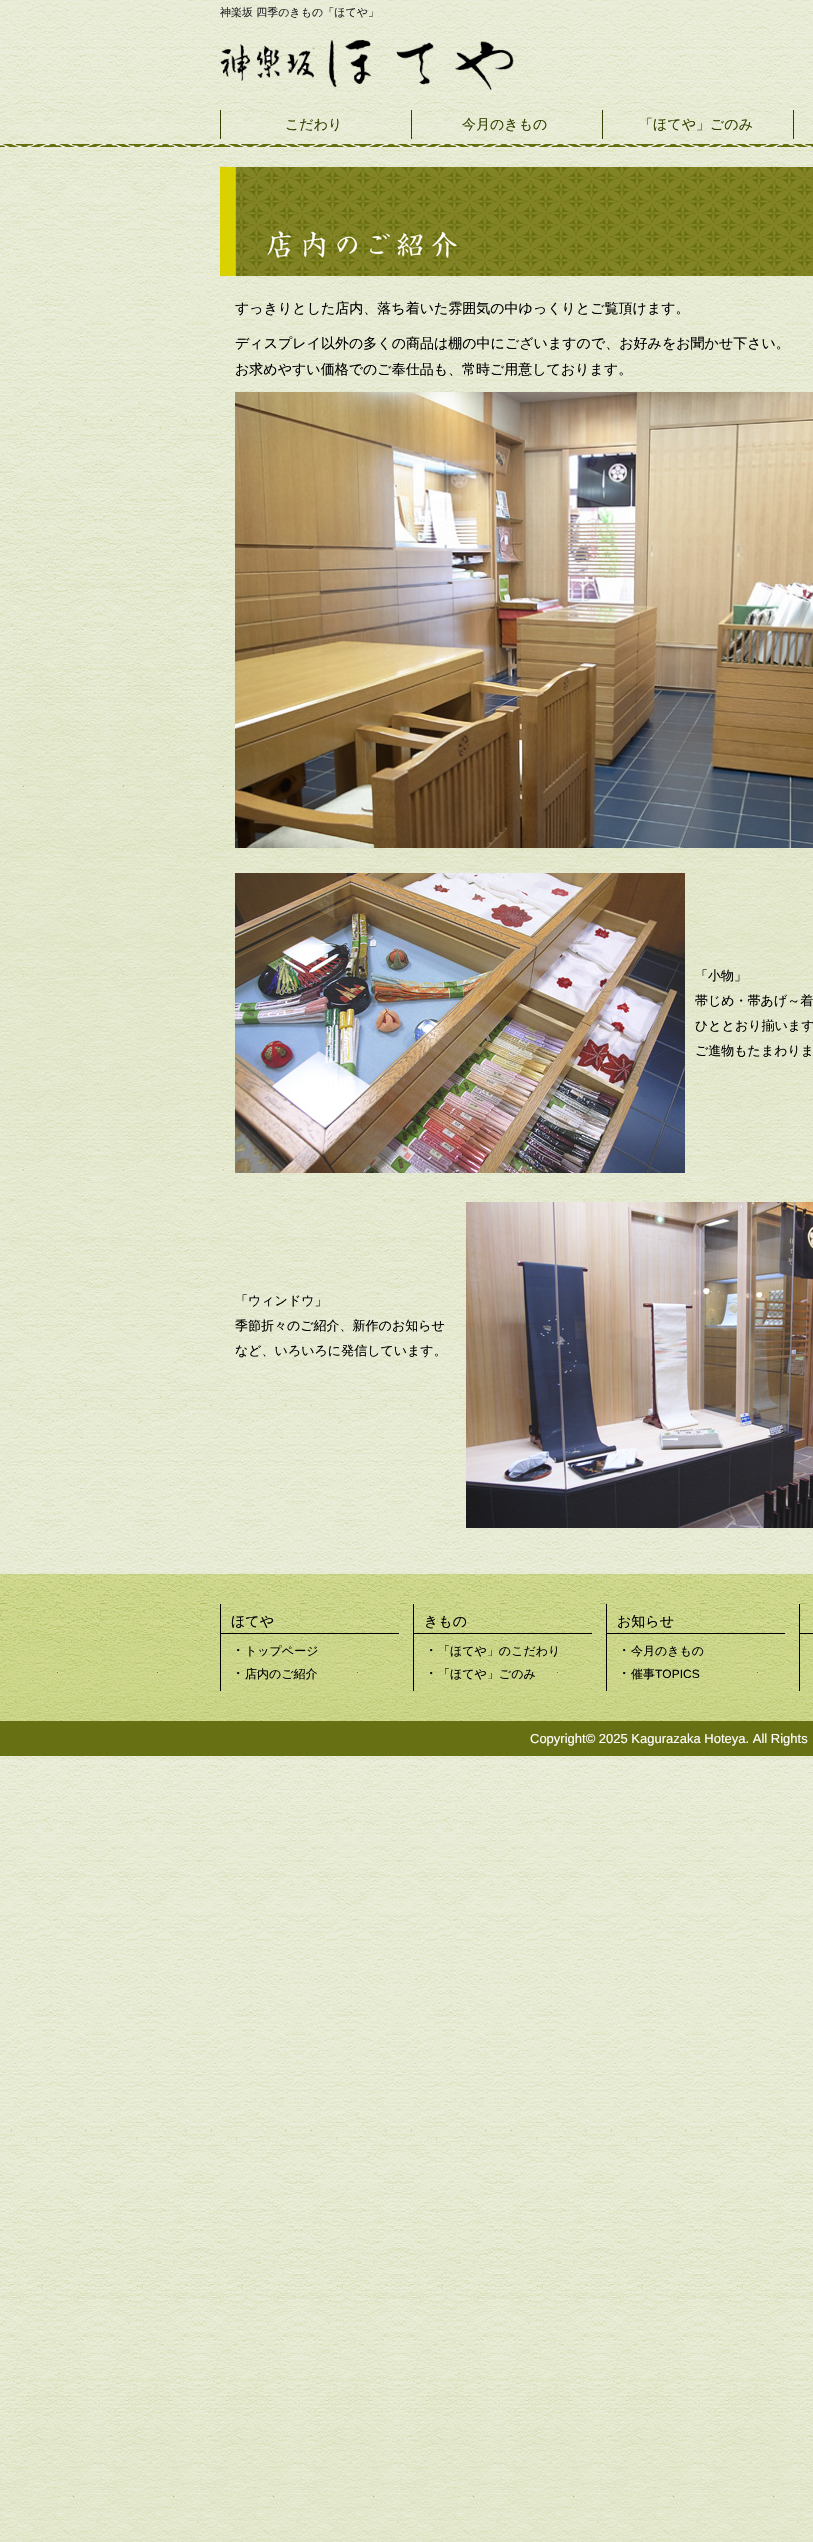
#include "include/core/SkBlurTypes.h"
#include "include/core/SkCanvas.h"
#include "include/core/SkData.h"
#include "include/core/SkFont.h"
#include "include/core/SkFontMgr.h"
#include "include/core/SkImage.h"
#include "include/core/SkMaskFilter.h"
#include "include/core/SkPaint.h"
#include "include/core/SkPathBuilder.h"
#include "include/core/SkTextBlob.h"
#include "include/effects/SkDashPathEffect.h"
#include "include/effects/SkGradientShader.h"
#include "include/utils/SkParsePath.h"

extern sk_sp<SkFontMgr> fontMgr;

static SkFont font(const char* family, int weight, float size, bool italic = false) {
    SkFontStyle style(weight, SkFontStyle::kNormal_Width,
        italic ? SkFontStyle::kItalic_Slant : SkFontStyle::kUpright_Slant);
    SkFont result(fontMgr->matchFamilyStyle(family, style), size);
    result.setSubpixel(true);
    return result;
}

static void drawLabel(SkCanvas* canvas, const char* s, float x, float y, const SkFont& font, SkColor color) {
    SkPaint ink(SkColor4f::FromColor(color));
    ink.setAntiAlias(true);
    canvas->drawString(s, x, y, font, ink);
}

static void fillRect(SkCanvas* canvas, float x, float y, float w, float h, SkColor color) {
    SkPaint ink(SkColor4f::FromColor(color));
    ink.setAntiAlias(true);
    canvas->drawRect(SkRect::MakeXYWH(x, y, w, h), ink);
}

static void drawPhoto(SkCanvas* canvas, const char* path, float x, float y, float w, float h) {
    auto image = SkImages::DeferredFromEncodedData(SkData::MakeFromFileName(path));
    canvas->drawImageRect(image, SkRect::MakeXYWH(x, y, w, h), SkSamplingOptions());
}

void draw(SkCanvas* canvas) {
    SkPaint paint;
    paint.setAntiAlias(true);
    canvas->clear(0xFFFFFFFF);
    drawPhoto(canvas, "assets/img1.png", 0, 0, 813, 2542);
    SkFont font1 = font("WenQuanYi Zen Hei", 500, 11);
    drawLabel(canvas, "神楽坂 四季のきもの「ほてや」", 220, 16, font1, 0xFF252525);
    drawPhoto(canvas, "assets/img2.png", 220, 40, 294, 50);
    fillRect(canvas, 220, 110, 1, 29, 0xFF324201);
    SkFont font2 = font("WenQuanYi Zen Hei", 500, 14);
    drawLabel(canvas, "こだわり", 285, 129, font2, 0xFF324201);
    fillRect(canvas, 411, 110, 1, 29, 0xFF324201);
    drawLabel(canvas, "今月のきもの", 462, 129, font2, 0xFF324201);
    fillRect(canvas, 602, 110, 1, 29, 0xFF324201);
    drawLabel(canvas, "「ほてや」ごのみ", 639, 129, font2, 0xFF324201);
    fillRect(canvas, 793, 110, 1, 29, 0xFF324201);
    drawPhoto(canvas, "assets/img3.png", 0, 144, 813, 3);
    drawPhoto(canvas, "assets/img4.png", 220, 167, 593, 109);
    drawLabel(canvas, "すっきりとした店内、落ち着いた雰囲気の中ゆっくりとご覧頂けます。", 235, 313, font2, 0xFF000000);
    drawLabel(canvas, "ディスプレイ以外の多くの商品は棚の中にございますので、お好みをお聞かせ下さい。", 235, 348, font2, 0xFF000000);
    drawLabel(canvas, "お求めやすい価格でのご奉仕品も、常時ご用意しております。", 235, 374, font2, 0xFF000000);
    drawPhoto(canvas, "assets/img5.png", 235, 392, 578, 456);
    drawPhoto(canvas, "assets/img6.png", 235, 873, 450, 300);
    SkFont font3 = font("WenQuanYi Zen Hei", 500, 13);
    drawLabel(canvas, "「小物」", 695, 980, font3, 0xFF000000);
    drawLabel(canvas, "帯じめ・帯あげ～着", 695, 1005, font3, 0xFF000000);
    drawLabel(canvas, "ひととおり揃います", 695, 1030, font3, 0xFF000000);
    drawLabel(canvas, "ご進物もたまわりま", 695, 1055, font3, 0xFF000000);
    drawLabel(canvas, "「ウィンドウ」", 235, 1305, font3, 0xFF000000);
    drawLabel(canvas, "季節折々のご紹介、新作のお知らせ", 235, 1330, font3, 0xFF000000);
    drawLabel(canvas, "など、いろいろに発信しています。", 235, 1355, font3, 0xFF000000);
    drawPhoto(canvas, "assets/img7.png", 466, 1202, 347, 326);
    drawPhoto(canvas, "assets/img8.png", 0, 1574, 813, 147);
    fillRect(canvas, 220, 1604, 1, 87, 0xFF000000);
    fillRect(canvas, 221, 1633, 178, 1, 0xFF000000);
    drawLabel(canvas, "ほてや", 231, 1626, font2, 0xFF000000);
    drawLabel(canvas, "・", 231, 1655, font2, 0xFF000000);
    SkFont font4 = font("WenQuanYi Zen Hei", 500, 12);
    drawLabel(canvas, "トップページ", 245, 1655, font4, 0xFF000000);
    drawLabel(canvas, "・", 231, 1678, font2, 0xFF000000);
    drawLabel(canvas, "店内のご紹介", 245, 1678, font4, 0xFF000000);
    fillRect(canvas, 413, 1604, 1, 87, 0xFF000000);
    fillRect(canvas, 414, 1633, 178, 1, 0xFF000000);
    drawLabel(canvas, "きもの", 424, 1626, font2, 0xFF000000);
    drawLabel(canvas, "・", 424, 1655, font2, 0xFF000000);
    drawLabel(canvas, "「ほてや」のこだわり", 438, 1655, font4, 0xFF000000);
    drawLabel(canvas, "・", 424, 1678, font2, 0xFF000000);
    drawLabel(canvas, "「ほてや」ごのみ", 438, 1678, font4, 0xFF000000);
    fillRect(canvas, 606, 1604, 1, 87, 0xFF000000);
    fillRect(canvas, 607, 1633, 178, 1, 0xFF000000);
    drawLabel(canvas, "お知らせ", 617, 1626, font2, 0xFF000000);
    drawLabel(canvas, "・", 617, 1655, font2, 0xFF000000);
    drawLabel(canvas, "今月のきもの", 631, 1655, font4, 0xFF000000);
    drawLabel(canvas, "・", 617, 1678, font2, 0xFF000000);
    drawLabel(canvas, "催事", 631, 1678, font4, 0xFF000000);
    SkFont font5 = font("Liberation Sans", 400, 12);
    drawLabel(canvas, "TOPICS", 655, 1678, font5, 0xFF000000);
    fillRect(canvas, 799, 1604, 1, 87, 0xFF000000);
    fillRect(canvas, 800, 1633, 13, 1, 0xFF000000);
    fillRect(canvas, 0, 1721, 813, 35, 0xFF677013);
    SkFont font6 = font("Liberation Sans", 400, 13);
    drawLabel(canvas, "Copyright© 2025 Kagurazaka Hoteya. All Rights", 530, 1743, font6, 0xFFFFFFFF);
}
